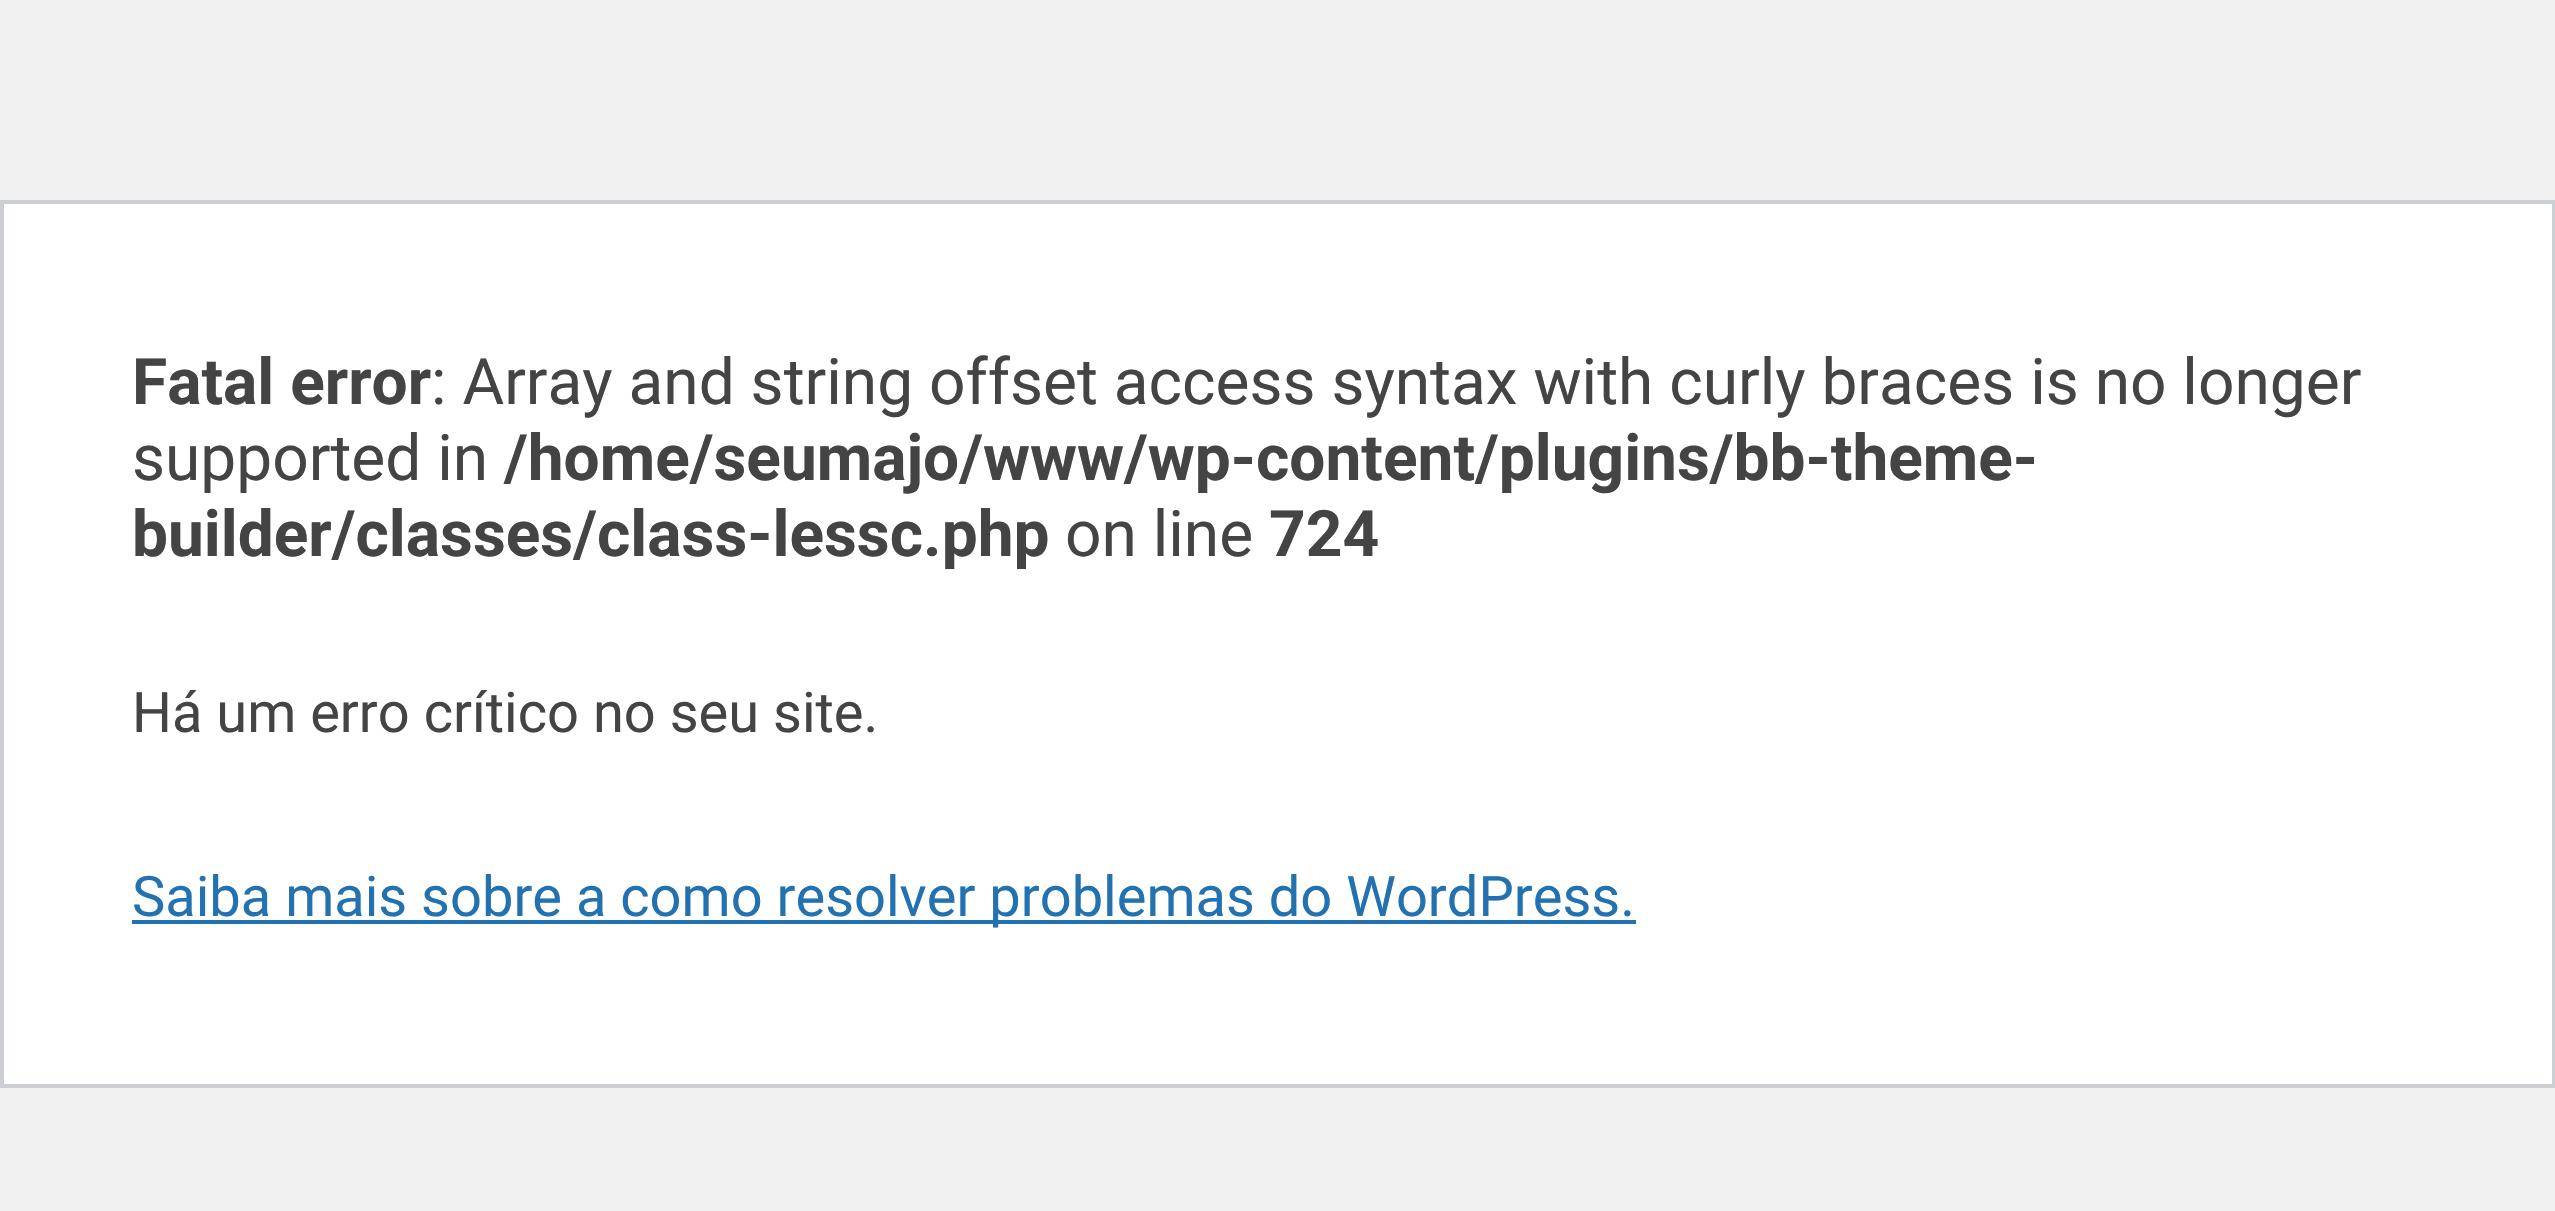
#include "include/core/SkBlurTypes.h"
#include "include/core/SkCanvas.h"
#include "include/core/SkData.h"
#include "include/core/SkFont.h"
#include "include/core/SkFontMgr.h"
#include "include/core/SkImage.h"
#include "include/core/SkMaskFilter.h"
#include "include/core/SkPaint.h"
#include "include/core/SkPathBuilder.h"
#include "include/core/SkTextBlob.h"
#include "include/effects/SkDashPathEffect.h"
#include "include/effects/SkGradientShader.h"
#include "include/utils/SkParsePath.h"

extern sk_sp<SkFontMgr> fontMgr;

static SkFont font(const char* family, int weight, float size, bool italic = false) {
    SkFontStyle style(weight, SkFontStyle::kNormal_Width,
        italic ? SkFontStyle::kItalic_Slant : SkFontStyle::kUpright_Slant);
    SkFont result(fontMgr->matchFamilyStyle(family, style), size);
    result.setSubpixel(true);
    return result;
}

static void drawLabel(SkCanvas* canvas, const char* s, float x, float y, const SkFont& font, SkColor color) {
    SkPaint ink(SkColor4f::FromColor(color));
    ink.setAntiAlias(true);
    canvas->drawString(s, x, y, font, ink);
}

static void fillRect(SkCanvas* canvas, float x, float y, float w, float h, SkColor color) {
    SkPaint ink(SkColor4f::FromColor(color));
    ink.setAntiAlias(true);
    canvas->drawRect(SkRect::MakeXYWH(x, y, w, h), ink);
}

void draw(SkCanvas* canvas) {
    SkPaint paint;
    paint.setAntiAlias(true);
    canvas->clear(0xFFF1F1F1);
    paint.setColor(0xFFFFFFFF);
    canvas->drawRect(SkRect::MakeXYWH(2, 202, 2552, 884), paint);
    paint.setStroke(true);
    paint.setStrokeWidth(4);
    paint.setColor(0xFFCCD0D4);
    canvas->drawRect(SkRect::MakeXYWH(2, 202, 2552, 884), paint);
    SkFont font1 = font("Roboto", 700, 64);
    drawLabel(canvas, "Fatal error", 132, 404, font1, 0xFF444444);
    SkFont font2 = font("Roboto", 400, 64);
    drawLabel(canvas, ": Array and string offset access syntax with curly braces is no longer", 431, 404, font2, 0xFF444444);
    drawLabel(canvas, "supported in", 132, 480, font2, 0xFF444444);
    drawLabel(canvas, "/home/seumajo/www/wp-content/plugins/bb-theme-", 504, 480, font1, 0xFF444444);
    drawLabel(canvas, "builder/classes/class-lessc.php", 132, 556, font1, 0xFF444444);
    drawLabel(canvas, "on line", 1065, 556, font2, 0xFF444444);
    drawLabel(canvas, "724", 1269, 556, font1, 0xFF444444);
    SkFont font3 = font("Roboto", 400, 56);
    drawLabel(canvas, "Há um erro crítico no seu site.", 132, 732, font3, 0xFF444444);
    fillRect(canvas, 132, 920, 1504, 4, 0xFF2271B1);
    drawLabel(canvas, "Saiba mais sobre a como resolver problemas do WordPress.", 132, 916, font3, 0xFF2271B1);
}
